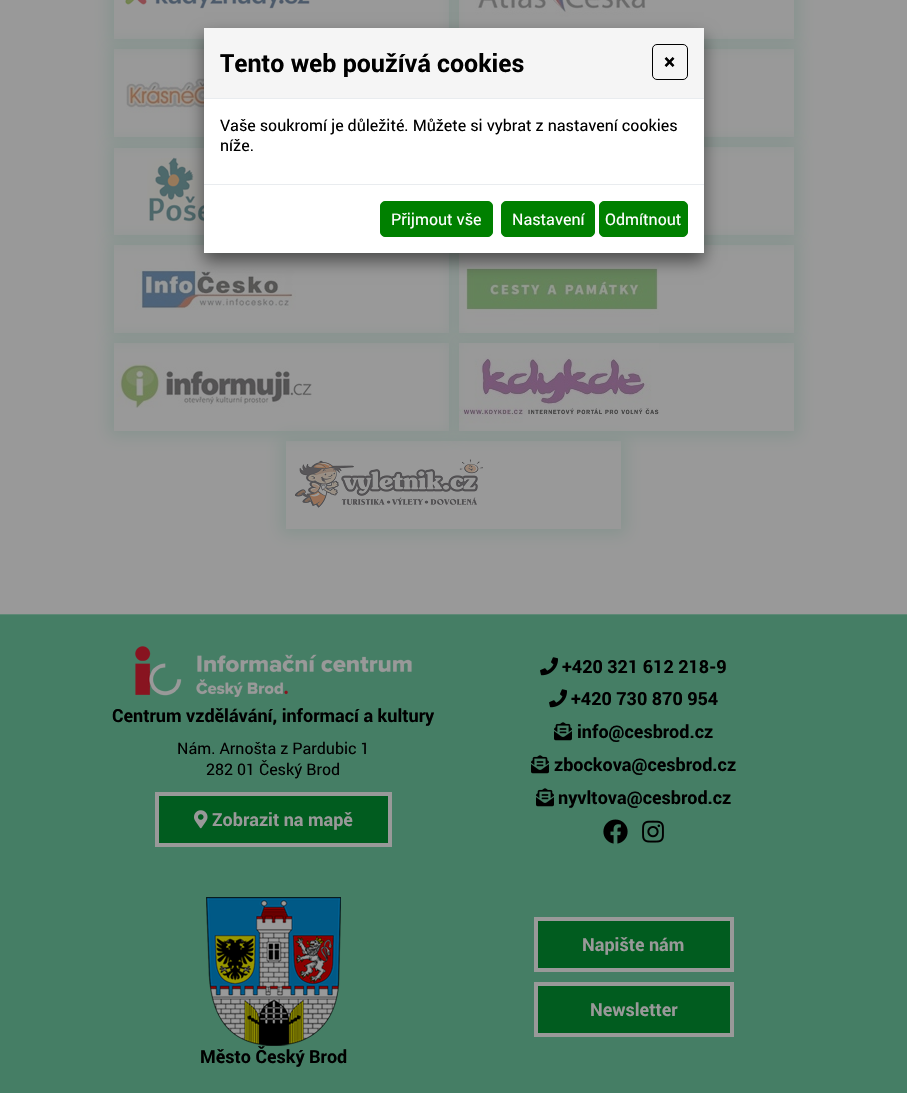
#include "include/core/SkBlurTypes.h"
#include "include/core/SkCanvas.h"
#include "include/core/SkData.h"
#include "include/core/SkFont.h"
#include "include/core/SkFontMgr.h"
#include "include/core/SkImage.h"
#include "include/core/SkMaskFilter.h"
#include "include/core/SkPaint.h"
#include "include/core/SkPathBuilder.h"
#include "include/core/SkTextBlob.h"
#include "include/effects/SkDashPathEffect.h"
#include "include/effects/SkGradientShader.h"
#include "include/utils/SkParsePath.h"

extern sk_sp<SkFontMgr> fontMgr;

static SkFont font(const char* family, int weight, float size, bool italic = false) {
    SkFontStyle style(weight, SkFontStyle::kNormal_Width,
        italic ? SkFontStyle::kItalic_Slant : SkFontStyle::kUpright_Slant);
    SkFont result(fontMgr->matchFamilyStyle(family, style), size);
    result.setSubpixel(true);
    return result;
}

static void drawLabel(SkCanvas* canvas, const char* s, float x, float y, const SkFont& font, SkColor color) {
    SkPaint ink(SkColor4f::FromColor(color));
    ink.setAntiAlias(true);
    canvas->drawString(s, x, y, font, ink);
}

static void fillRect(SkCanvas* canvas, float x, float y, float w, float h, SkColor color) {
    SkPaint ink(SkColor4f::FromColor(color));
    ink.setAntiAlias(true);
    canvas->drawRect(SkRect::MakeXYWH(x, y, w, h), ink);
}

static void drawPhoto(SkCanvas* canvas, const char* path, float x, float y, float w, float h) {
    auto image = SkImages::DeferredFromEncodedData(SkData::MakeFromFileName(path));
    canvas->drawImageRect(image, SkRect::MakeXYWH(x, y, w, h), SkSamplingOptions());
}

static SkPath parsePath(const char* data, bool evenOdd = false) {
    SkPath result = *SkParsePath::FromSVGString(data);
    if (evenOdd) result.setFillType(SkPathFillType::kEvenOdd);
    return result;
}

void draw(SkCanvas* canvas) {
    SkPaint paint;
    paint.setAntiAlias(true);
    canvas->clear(0xFF999999);
    canvas->save();
    canvas->clipPath(parsePath("M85 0H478V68H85ZM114-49H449V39H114Z", true), true);
    paint.setColor(0xFF86938E);
    paint.setMaskFilter(SkMaskFilter::MakeBlur(kNormal_SkBlurStyle, 7.5f));
    canvas->drawRect(SkRect::MakeXYWH(109, -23, 345, 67), paint);
    paint.setMaskFilter(nullptr);
    canvas->restore();
    drawPhoto(canvas, "assets/img1.png", 125, 0, 185, 9);
    canvas->save();
    canvas->clipPath(parsePath("M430 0H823V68H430ZM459-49H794V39H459Z", true), true);
    paint.setMaskFilter(SkMaskFilter::MakeBlur(kNormal_SkBlurStyle, 7.5f));
    canvas->drawRect(SkRect::MakeXYWH(454, -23, 345, 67), paint);
    paint.setMaskFilter(nullptr);
    canvas->restore();
    canvas->save();
    canvas->clipPath(parsePath("M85 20H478V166H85ZM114 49H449V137H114Z", true), true);
    paint.setMaskFilter(SkMaskFilter::MakeBlur(kNormal_SkBlurStyle, 7.5f));
    canvas->drawRect(SkRect::MakeXYWH(109, 44, 345, 98), paint);
    paint.setMaskFilter(nullptr);
    canvas->restore();
    canvas->save();
    canvas->clipPath(parsePath("M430 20H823V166H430ZM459 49H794V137H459Z", true), true);
    paint.setMaskFilter(SkMaskFilter::MakeBlur(kNormal_SkBlurStyle, 7.5f));
    canvas->drawRect(SkRect::MakeXYWH(454, 44, 345, 98), paint);
    paint.setMaskFilter(nullptr);
    canvas->restore();
    drawPhoto(canvas, "assets/img2.png", 459, 0, 187, 28);
    drawPhoto(canvas, "assets/img3.png", 126, 78, 78, 35);
    canvas->save();
    canvas->clipPath(parsePath("M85 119H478V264H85ZM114 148H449V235H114Z", true), true);
    paint.setMaskFilter(SkMaskFilter::MakeBlur(kNormal_SkBlurStyle, 7.5f));
    canvas->drawRect(SkRect::MakeXYWH(109, 143, 345, 97), paint);
    paint.setMaskFilter(nullptr);
    canvas->restore();
    canvas->save();
    canvas->clipPath(parsePath("M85 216H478V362H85ZM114 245H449V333H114Z", true), true);
    paint.setMaskFilter(SkMaskFilter::MakeBlur(kNormal_SkBlurStyle, 7.5f));
    canvas->drawRect(SkRect::MakeXYWH(109, 240, 345, 98), paint);
    paint.setMaskFilter(nullptr);
    canvas->restore();
    drawPhoto(canvas, "assets/img4.png", 147, 157, 57, 67);
    canvas->save();
    canvas->clipPath(parsePath("M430 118H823V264H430ZM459 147H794V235H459Z", true), true);
    paint.setMaskFilter(SkMaskFilter::MakeBlur(kNormal_SkBlurStyle, 7.5f));
    canvas->drawRect(SkRect::MakeXYWH(454, 142, 345, 98), paint);
    paint.setMaskFilter(nullptr);
    canvas->restore();
    drawPhoto(canvas, "assets/img5.png", 134, 268, 162, 42);
    canvas->save();
    canvas->clipPath(parsePath("M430 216H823V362H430ZM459 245H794V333H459Z", true), true);
    paint.setMaskFilter(SkMaskFilter::MakeBlur(kNormal_SkBlurStyle, 7.5f));
    canvas->drawRect(SkRect::MakeXYWH(454, 240, 345, 98), paint);
    paint.setMaskFilter(nullptr);
    canvas->restore();
    canvas->save();
    canvas->clipPath(parsePath("M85 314H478V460H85ZM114 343H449V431H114Z", true), true);
    paint.setMaskFilter(SkMaskFilter::MakeBlur(kNormal_SkBlurStyle, 7.5f));
    canvas->drawRect(SkRect::MakeXYWH(109, 338, 345, 98), paint);
    paint.setMaskFilter(nullptr);
    canvas->restore();
    canvas->save();
    canvas->clipPath(parsePath("M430 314H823V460H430ZM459 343H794V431H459Z", true), true);
    paint.setMaskFilter(SkMaskFilter::MakeBlur(kNormal_SkBlurStyle, 7.5f));
    canvas->drawRect(SkRect::MakeXYWH(454, 338, 345, 98), paint);
    paint.setMaskFilter(nullptr);
    canvas->restore();
    drawPhoto(canvas, "assets/img6.png", 459, 253, 200, 80);
    drawPhoto(canvas, "assets/img7.png", 116, 362, 196, 46);
    canvas->save();
    canvas->clipPath(parsePath("M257 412H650V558H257ZM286 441H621V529H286Z", true), true);
    paint.setMaskFilter(SkMaskFilter::MakeBlur(kNormal_SkBlurStyle, 7.5f));
    canvas->drawRect(SkRect::MakeXYWH(281, 436, 345, 98), paint);
    paint.setMaskFilter(nullptr);
    canvas->restore();
    drawPhoto(canvas, "assets/img8.png", 459, 343, 200, 88);
    drawPhoto(canvas, "assets/img9.png", 295, 459, 188, 49);
    paint.setColor(0x80000000);
    paint.setMaskFilter(SkMaskFilter::MakeBlur(kNormal_SkBlurStyle, 8));
    canvas->drawRect(SkRect::MakeXYWH(204, 36, 500, 225), paint);
    paint.setMaskFilter(nullptr);
    fillRect(canvas, 204, 99, 500, 154, 0xFFFFFFFF);
    fillRect(canvas, 204, 28, 500, 70, 0xFFF5F5F5);
    fillRect(canvas, 204, 98, 500, 1, 0xFFE9ECEF);
    SkFont font1 = font("Roboto", 700, 25);
    drawLabel(canvas, "Tento web používá cookies", 220, 72, font1, 0xFF000000);
    paint.setStroke(true);
    paint.setStrokeWidth(1);
    paint.setColor(0xFF000000);
    canvas->drawRoundRect(SkRect::MakeXYWH(652.5f, 44.5f, 35, 35), 4.5f, 4.5f, paint);
    SkFont font2 = font("Roboto", 700, 21);
    drawLabel(canvas, "×", 664, 69, font2, 0xFF000000);
    SkFont font3 = font("Roboto", 400, 16);
    drawLabel(canvas, "Vaše soukromí je důležité. Můžete si vybrat z nastavení cookies", 220, 131, font3, 0xFF000000);
    drawLabel(canvas, "níže.", 220, 151, font3, 0xFF000000);
    fillRect(canvas, 204, 184, 500, 1, 0xFFE9ECEF);
    paint.setStroke(false);
    paint.setColor(0xFF008000);
    canvas->drawRoundRect(SkRect::MakeXYWH(380.5f, 201.5f, 112, 35), 4.5f, 4.5f, paint);
    paint.setStroke(true);
    canvas->drawRoundRect(SkRect::MakeXYWH(380.5f, 201.5f, 112, 35), 4.5f, 4.5f, paint);
    drawLabel(canvas, "Přijmout vše", 391, 225, font3, 0xFFFFFFFF);
    paint.setStroke(false);
    canvas->drawRoundRect(SkRect::MakeXYWH(501.5f, 201.5f, 93, 35), 4.5f, 4.5f, paint);
    paint.setStroke(true);
    canvas->drawRoundRect(SkRect::MakeXYWH(501.5f, 201.5f, 93, 35), 4.5f, 4.5f, paint);
    drawLabel(canvas, "Nastavení", 512, 225, font3, 0xFFFFFFFF);
    paint.setStroke(false);
    canvas->drawRoundRect(SkRect::MakeXYWH(599.5f, 201.5f, 88, 35), 4.5f, 4.5f, paint);
    paint.setStroke(true);
    canvas->drawRoundRect(SkRect::MakeXYWH(599.5f, 201.5f, 88, 35), 4.5f, 4.5f, paint);
    drawLabel(canvas, "Odmítnout", 605, 225, font3, 0xFFFFFFFF);
    fillRect(canvas, 0, 615, 907, 478, 0xFF457E65);
    fillRect(canvas, 0, 614, 907, 1, 0xFF5E8976);
    drawPhoto(canvas, "assets/img10.png", 135, 646, 277, 51);
    SkFont font4 = font("Roboto", 700, 18);
    drawLabel(canvas, "Centrum vzdělávání, informací a kultury", 112, 722, font4, 0xFF000000);
    drawLabel(canvas, "Nám. Arnošta z Pardubic 1", 177, 754, font3, 0xFF000000);
    drawLabel(canvas, "282 01 Český Brod", 206, 775, font3, 0xFF000000);
    paint.setStroke(false);
    paint.setColor(0xFF015C1F);
    canvas->drawRect(SkRect::MakeXYWH(157, 794, 233, 51), paint);
    paint.setStroke(true);
    paint.setStrokeWidth(4);
    paint.setColor(0xFF999999);
    canvas->drawRect(SkRect::MakeXYWH(157, 794, 233, 51), paint);
    drawPhoto(canvas, "assets/img11.png", 194, 810, 14, 19);
    drawLabel(canvas, "Zobrazit na mapě", 212, 826, font4, 0xFF999999);
    drawPhoto(canvas, "assets/img12.png", 540, 657, 18, 19);
    drawLabel(canvas, "+420 321 612 218-9", 562, 673, font4, 0xFF000000);
    drawPhoto(canvas, "assets/img12.png", 549, 689, 18, 19);
    drawLabel(canvas, "+420 730 870 954", 571, 705, font4, 0xFF000000);
    drawPhoto(canvas, "assets/img13.png", 554, 722, 18, 19);
    drawLabel(canvas, "info@cesbrod.cz", 577, 738, font4, 0xFF000000);
    drawPhoto(canvas, "assets/img13.png", 531, 755, 18, 19);
    drawLabel(canvas, "zbockova@cesbrod.cz", 554, 771, font4, 0xFF000000);
    drawPhoto(canvas, "assets/img13.png", 536, 788, 18, 19);
    drawLabel(canvas, "nyvltova@cesbrod.cz", 558, 804, font4, 0xFF000000);
    drawPhoto(canvas, "assets/img14.png", 603, 819, 25, 25);
    drawPhoto(canvas, "assets/img15.png", 642, 820, 22, 23);
    paint.setStroke(false);
    paint.setColor(0xFF015C1F);
    canvas->drawRect(SkRect::MakeXYWH(536, 919, 196, 51), paint);
    paint.setStroke(true);
    paint.setColor(0xFF999999);
    canvas->drawRect(SkRect::MakeXYWH(536, 919, 196, 51), paint);
    drawLabel(canvas, "Napište nám", 582, 951, font4, 0xFF999999);
    paint.setStroke(false);
    paint.setColor(0xFF015C1F);
    canvas->drawRect(SkRect::MakeXYWH(536, 984, 196, 51), paint);
    paint.setStroke(true);
    paint.setColor(0xFF999999);
    canvas->drawRect(SkRect::MakeXYWH(536, 984, 196, 51), paint);
    drawLabel(canvas, "Newsletter", 590, 1016, font4, 0xFF999999);
    drawPhoto(canvas, "assets/img16.png", 206, 897, 135, 149);
    drawLabel(canvas, "Město Český Brod", 200, 1063, font4, 0xFF000000);
}
